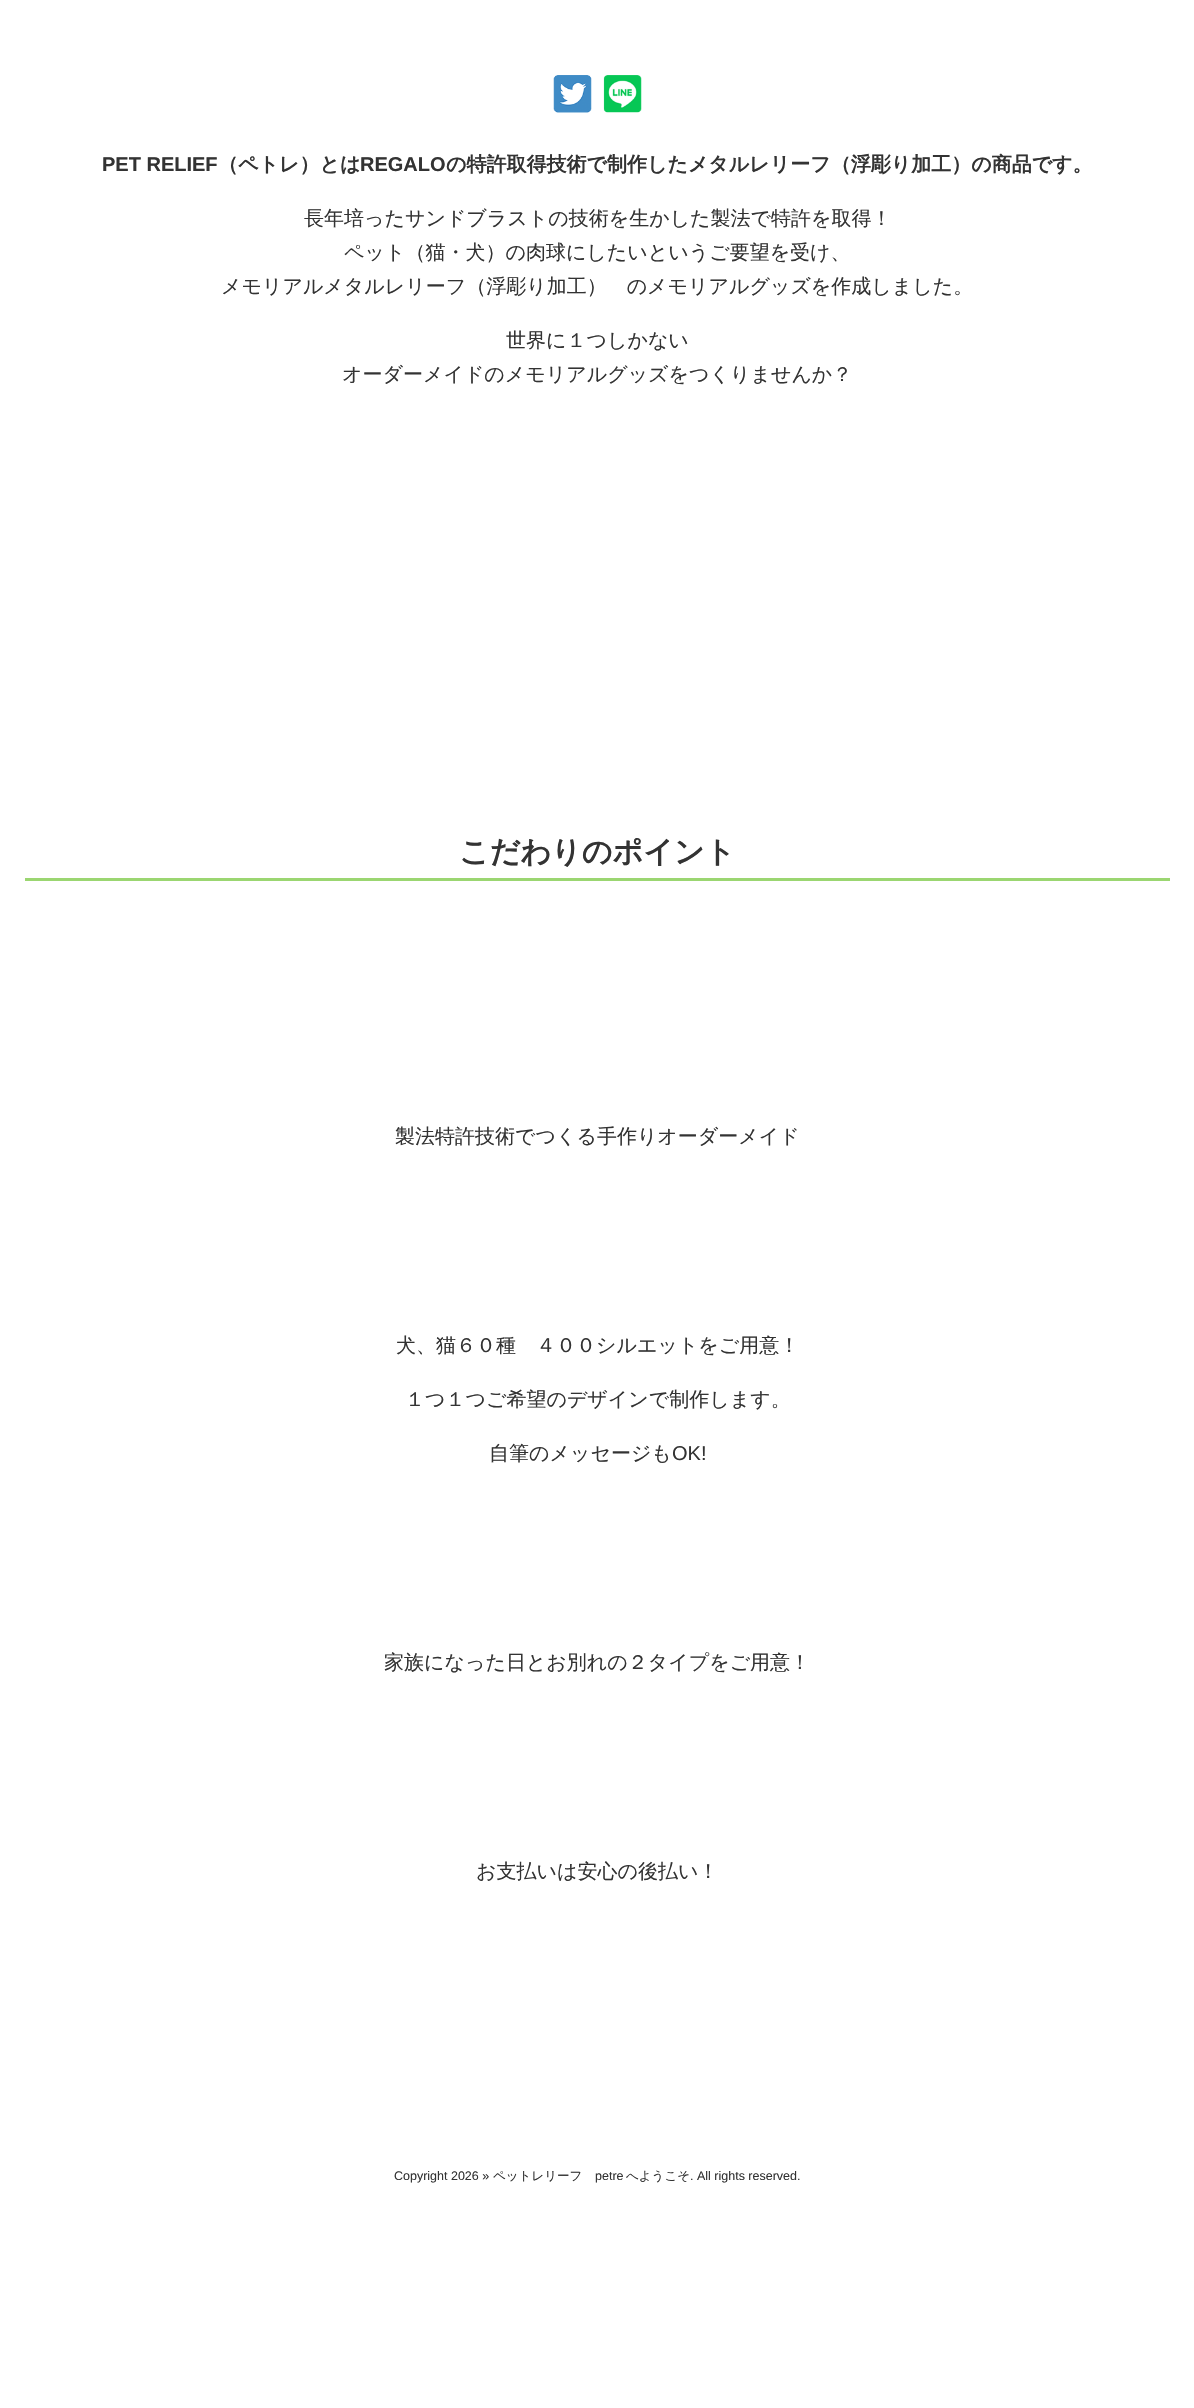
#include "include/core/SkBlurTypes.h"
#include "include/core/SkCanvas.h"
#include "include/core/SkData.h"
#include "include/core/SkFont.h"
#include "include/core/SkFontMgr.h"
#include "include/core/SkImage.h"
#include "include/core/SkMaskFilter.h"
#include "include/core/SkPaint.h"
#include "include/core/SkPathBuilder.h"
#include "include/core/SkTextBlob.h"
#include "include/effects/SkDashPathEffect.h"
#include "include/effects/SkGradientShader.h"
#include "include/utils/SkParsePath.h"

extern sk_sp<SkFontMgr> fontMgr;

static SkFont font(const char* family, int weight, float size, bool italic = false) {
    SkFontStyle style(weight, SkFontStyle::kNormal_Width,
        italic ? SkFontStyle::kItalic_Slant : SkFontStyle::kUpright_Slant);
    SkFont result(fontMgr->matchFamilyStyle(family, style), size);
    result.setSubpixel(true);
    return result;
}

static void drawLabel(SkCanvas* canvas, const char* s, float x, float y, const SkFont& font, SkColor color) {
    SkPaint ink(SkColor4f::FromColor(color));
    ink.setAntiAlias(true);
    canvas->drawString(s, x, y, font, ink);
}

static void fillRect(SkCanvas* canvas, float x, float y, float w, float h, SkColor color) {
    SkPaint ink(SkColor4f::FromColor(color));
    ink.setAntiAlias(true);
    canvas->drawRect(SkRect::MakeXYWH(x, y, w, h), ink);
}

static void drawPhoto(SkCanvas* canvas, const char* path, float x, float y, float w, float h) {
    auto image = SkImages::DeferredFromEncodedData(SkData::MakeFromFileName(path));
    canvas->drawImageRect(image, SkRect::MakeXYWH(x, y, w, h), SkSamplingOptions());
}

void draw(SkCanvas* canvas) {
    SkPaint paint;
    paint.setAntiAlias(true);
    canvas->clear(0xFFFFFFFF);
    drawPhoto(canvas, "assets/img1.png", 553, 75, 39, 38);
    drawPhoto(canvas, "assets/img2.png", 603, 75, 39, 38);
    SkFont font1 = font("Liberation Sans", 700, 20);
    drawLabel(canvas, "PET RELIEF", 102, 171, font1, 0xFF333333);
    SkFont font2 = font("WenQuanYi Zen Hei", 700, 20);
    drawLabel(canvas, "（ペトレ）とは", 218, 171, font2, 0xFF333333);
    drawLabel(canvas, "REGALO", 360, 171, font1, 0xFF333333);
    drawLabel(canvas, "の特許取得技術で制作したメタルレリーフ（浮彫り加工）の商品です。", 446, 171, font2, 0xFF333333);
    SkFont font3 = font("WenQuanYi Zen Hei", 500, 20);
    drawLabel(canvas, "長年培ったサンドブラストの技術を生かした製法で特許を取得！", 304, 225, font3, 0xFF333333);
    drawLabel(canvas, "ペット（猫・犬）の肉球にしたいというご要望を受け、", 344, 259, font3, 0xFF333333);
    drawLabel(canvas, "メモリアルメタルレリーフ（浮彫り加工）　のメモリアルグッズを作成しました。", 221, 293, font3, 0xFF333333);
    drawLabel(canvas, "世界に１つしかない", 506, 347, font3, 0xFF333333);
    drawLabel(canvas, "オーダーメイドのメモリアルグッズをつくりませんか？", 342, 381, font3, 0xFF333333);
    fillRect(canvas, 25, 878, 1145, 3, 0xFF9BD671);
    SkFont font4 = font("WenQuanYi Zen Hei", 700, 30);
    drawLabel(canvas, "こだわりのポイント", 459, 862, font4, 0xFF333333);
    drawLabel(canvas, "製法特許技術でつくる手作りオーダーメイド", 395, 1143, font3, 0xFF333333);
    drawLabel(canvas, "犬、猫６０種　４００シルエットをご用意！", 396, 1352, font3, 0xFF333333);
    drawLabel(canvas, "１つ１つご希望のデザインで制作します。", 405, 1406, font3, 0xFF333333);
    drawLabel(canvas, "自筆のメッセージも", 489, 1460, font3, 0xFF333333);
    SkFont font5 = font("Liberation Sans", 400, 20);
    drawLabel(canvas, "OK!", 672, 1460, font5, 0xFF333333);
    drawLabel(canvas, "家族になった日とお別れの２タイプをご用意！", 384, 1669, font3, 0xFF333333);
    drawLabel(canvas, "お支払いは安心の後払い！", 476, 1878, font3, 0xFF333333);
    SkFont font6 = font("Liberation Sans", 400, 12.5f);
    drawLabel(canvas, "Copyright 2026 »", 394, 2180, font6, 0xFF333333);
    SkFont font7 = font("WenQuanYi Zen Hei", 500, 12.5f);
    drawLabel(canvas, "ペットレリーフ", 493, 2180, font7, 0xFF333333);
    drawLabel(canvas, "petre", 595, 2180, font6, 0xFF333333);
    drawLabel(canvas, "へようこそ", 626, 2180, font7, 0xFF333333);
    drawLabel(canvas, ". All rights reserved.", 690, 2180, font6, 0xFF333333);
}
